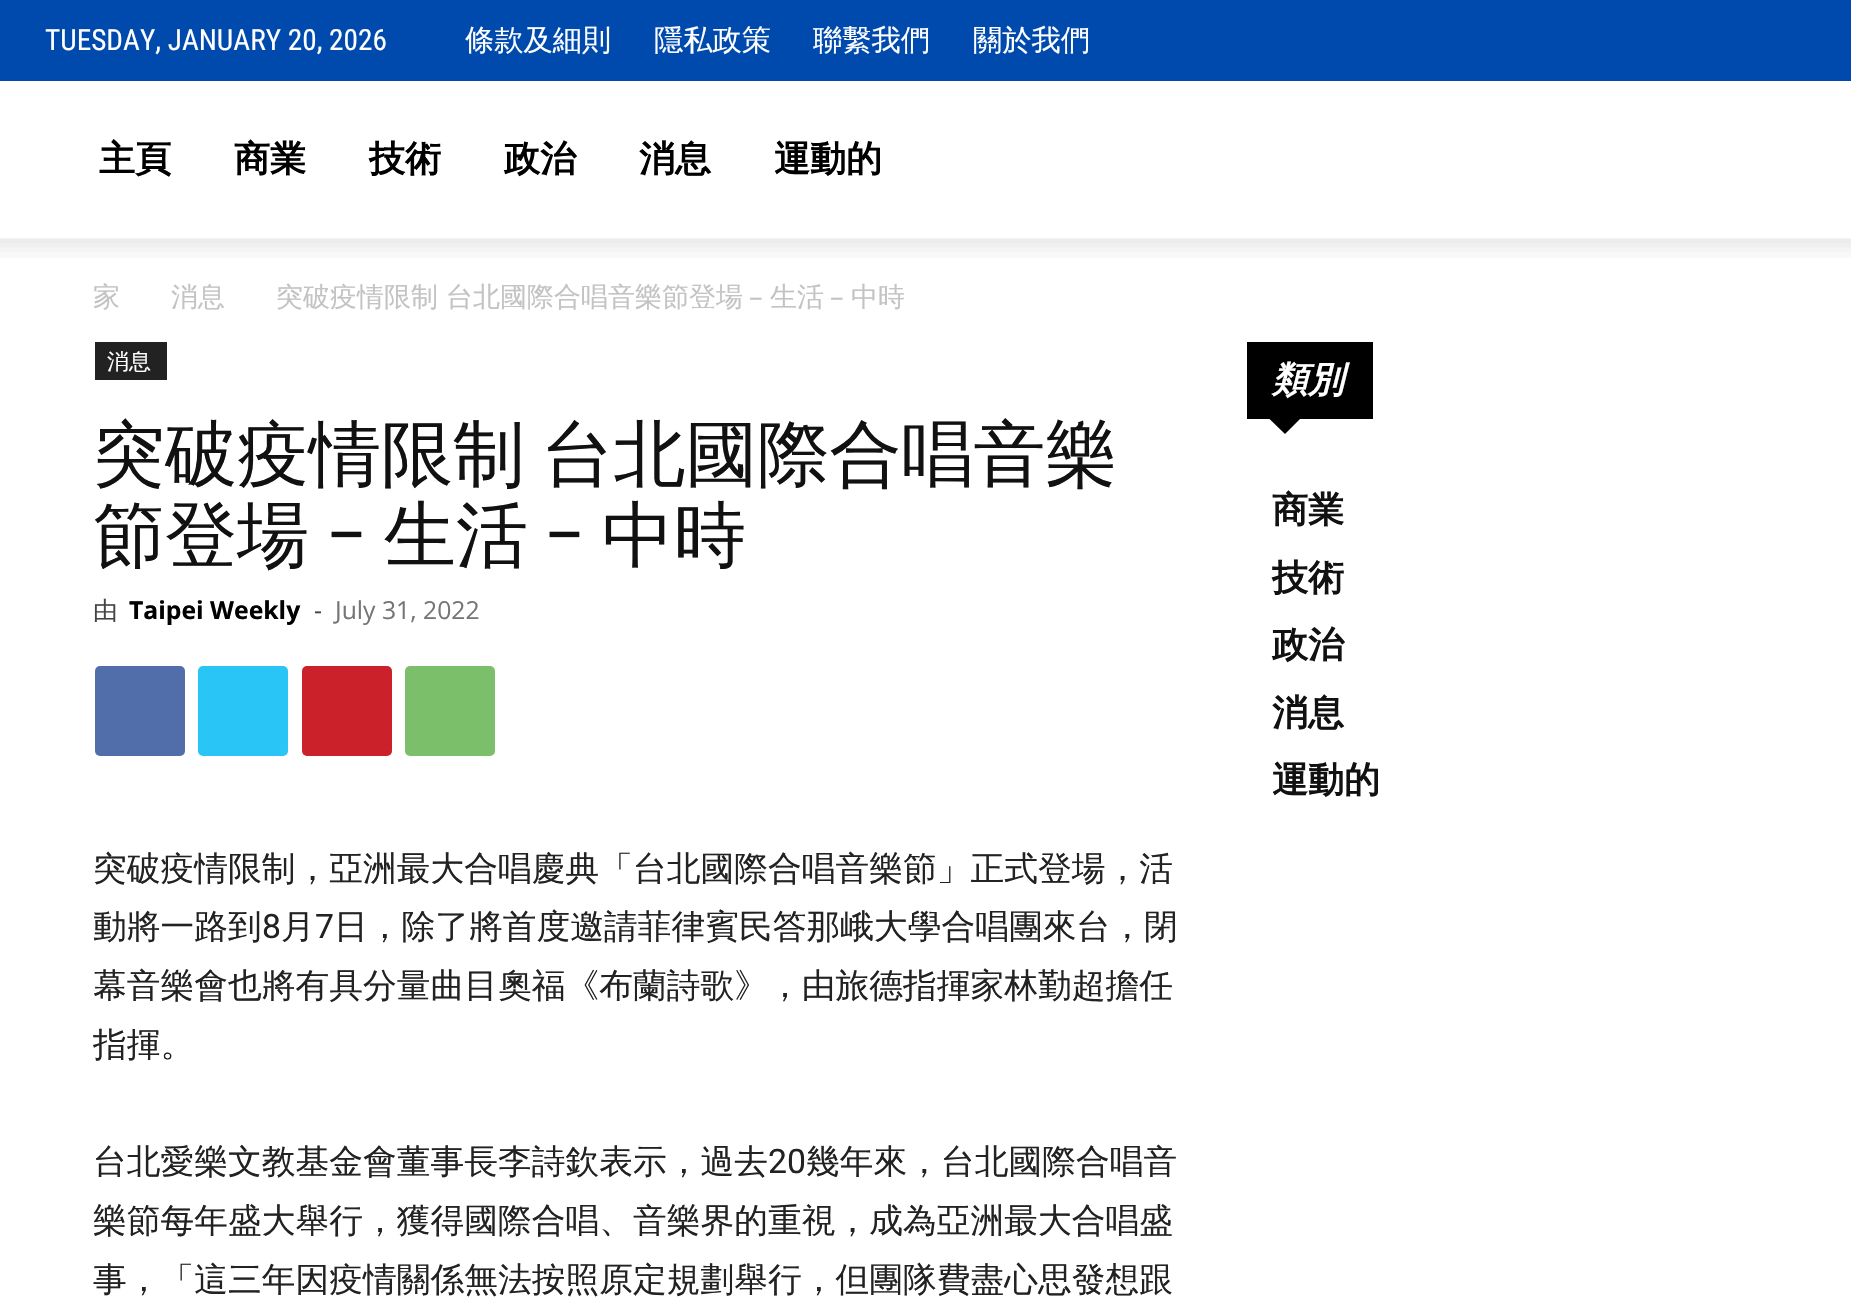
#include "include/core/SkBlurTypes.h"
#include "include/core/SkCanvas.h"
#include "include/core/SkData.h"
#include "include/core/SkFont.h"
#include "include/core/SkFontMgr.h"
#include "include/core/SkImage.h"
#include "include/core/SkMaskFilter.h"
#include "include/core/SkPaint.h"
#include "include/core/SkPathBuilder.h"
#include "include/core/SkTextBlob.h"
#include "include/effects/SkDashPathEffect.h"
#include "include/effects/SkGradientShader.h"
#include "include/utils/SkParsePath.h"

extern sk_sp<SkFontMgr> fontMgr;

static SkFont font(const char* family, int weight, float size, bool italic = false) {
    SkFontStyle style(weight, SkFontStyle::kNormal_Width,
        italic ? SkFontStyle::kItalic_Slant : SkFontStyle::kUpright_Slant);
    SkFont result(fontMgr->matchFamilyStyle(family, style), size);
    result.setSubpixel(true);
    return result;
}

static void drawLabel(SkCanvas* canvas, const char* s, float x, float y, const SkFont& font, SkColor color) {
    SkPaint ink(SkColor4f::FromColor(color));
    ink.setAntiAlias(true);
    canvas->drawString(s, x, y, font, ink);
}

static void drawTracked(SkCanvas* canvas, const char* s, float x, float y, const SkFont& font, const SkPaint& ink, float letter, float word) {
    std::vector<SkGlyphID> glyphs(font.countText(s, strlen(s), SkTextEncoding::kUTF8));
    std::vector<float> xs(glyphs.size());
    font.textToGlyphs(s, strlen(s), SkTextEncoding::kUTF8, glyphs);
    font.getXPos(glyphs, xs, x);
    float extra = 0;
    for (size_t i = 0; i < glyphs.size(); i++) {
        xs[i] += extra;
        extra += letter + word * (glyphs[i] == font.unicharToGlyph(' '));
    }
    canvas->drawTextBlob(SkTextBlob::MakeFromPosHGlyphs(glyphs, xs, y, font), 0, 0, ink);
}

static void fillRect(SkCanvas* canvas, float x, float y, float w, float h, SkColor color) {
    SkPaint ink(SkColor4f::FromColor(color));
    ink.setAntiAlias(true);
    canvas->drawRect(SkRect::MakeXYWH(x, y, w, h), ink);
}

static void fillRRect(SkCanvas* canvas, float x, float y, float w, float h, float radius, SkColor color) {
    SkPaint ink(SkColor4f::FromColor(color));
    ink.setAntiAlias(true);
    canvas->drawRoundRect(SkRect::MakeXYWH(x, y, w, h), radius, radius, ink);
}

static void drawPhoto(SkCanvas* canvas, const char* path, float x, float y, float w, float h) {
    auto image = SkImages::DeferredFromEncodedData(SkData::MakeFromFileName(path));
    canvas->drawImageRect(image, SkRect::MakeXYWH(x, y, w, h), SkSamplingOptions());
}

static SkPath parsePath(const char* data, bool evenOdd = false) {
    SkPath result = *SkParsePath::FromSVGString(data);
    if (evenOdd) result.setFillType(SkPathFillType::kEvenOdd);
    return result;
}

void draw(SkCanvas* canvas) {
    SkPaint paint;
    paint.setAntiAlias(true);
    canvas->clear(0xFFFFFFFF);
    fillRect(canvas, 0, 0, 1851, 81, 0xFF004AAD);
    SkFont font1 = font("Roboto Condensed", 400, 29.25f);
    drawLabel(canvas, "TUESDAY, JANUARY 20, 2026", 45, 50, font1, 0xFFFFFFFF);
    SkFont font2 = font("WenQuanYi Zen Hei", 500, 29.25f);
    drawLabel(canvas, "條款及細則", 465, 50, font2, 0xFFFFFFFF);
    drawLabel(canvas, "隱私政策", 654, 50, font2, 0xFFFFFFFF);
    drawLabel(canvas, "聯繫我們", 813, 50, font2, 0xFFFFFFFF);
    drawLabel(canvas, "關於我們", 973, 50, font2, 0xFFFFFFFF);
    SkFont font3 = font("WenQuanYi Zen Hei", 700, 36);
    drawLabel(canvas, "主頁", 99, 171, font3, 0xFF000000);
    drawLabel(canvas, "商業", 234, 171, font3, 0xFF000000);
    drawLabel(canvas, "技術", 369, 171, font3, 0xFF000000);
    drawLabel(canvas, "政治", 504, 171, font3, 0xFF000000);
    drawLabel(canvas, "消息", 639, 171, font3, 0xFF000000);
    drawLabel(canvas, "運動的", 774, 171, font3, 0xFF000000);
    drawPhoto(canvas, "assets/img1.png", 0, 238, 1851, 20);
    SkFont font4 = font("WenQuanYi Zen Hei", 500, 27);
    drawLabel(canvas, "家", 93, 306, font4, 0xFFC3C3C3);
    drawLabel(canvas, "消息", 171, 306, font4, 0xFFC3C3C3);
    drawLabel(canvas, "突破疫情限制 台北國際合唱音樂節登場", 276, 306, font4, 0xFFC3C3C3);
    SkFont font5 = font("Open Sans", 400, 27);
    drawLabel(canvas, "–", 749, 306, font5, 0xFFC3C3C3);
    drawLabel(canvas, "生活", 770, 306, font4, 0xFFC3C3C3);
    drawLabel(canvas, "–", 830, 306, font5, 0xFFC3C3C3);
    drawLabel(canvas, "中時", 851, 306, font4, 0xFFC3C3C3);
    fillRect(canvas, 95, 342, 72, 38, 0xFF222222);
    SkFont font6 = font("WenQuanYi Zen Hei", 500, 22);
    drawLabel(canvas, "消息", 107, 369, font6, 0xFFFFFFFF);
    SkFont font7 = font("WenQuanYi Zen Hei", 500, 72);
    paint.setColor(0xFF111111);
    drawTracked(canvas, "突破疫情限制 台北國際合唱音樂", 93, 479, font7, paint, 0, -5);
    drawLabel(canvas, "節登場", 93, 560, font7, 0xFF111111);
    SkFont font8 = font("Roboto Condensed", 400, 72);
    drawLabel(canvas, "–", 326, 560, font8, 0xFF111111);
    drawLabel(canvas, "生活", 384, 560, font7, 0xFF111111);
    drawLabel(canvas, "–", 544, 560, font8, 0xFF111111);
    drawLabel(canvas, "中時", 602, 560, font7, 0xFF111111);
    SkFont font9 = font("WenQuanYi Zen Hei", 500, 24.75f);
    drawLabel(canvas, "由", 93, 619, font9, 0xFF444444);
    SkFont font10 = font("Open Sans", 700, 24.75f);
    drawLabel(canvas, "Taipei Weekly", 129, 619, font10, 0xFF000000);
    SkFont font11 = font("Open Sans", 400, 24.75f);
    drawLabel(canvas, "-", 314, 619, font11, 0xFF444444);
    drawLabel(canvas, "July 31, 2022", 335, 619, font11, 0xFF767676);
    fillRRect(canvas, 95, 666, 90, 90, 5, 0xFF516EAB);
    fillRRect(canvas, 198, 666, 90, 90, 5, 0xFF29C5F6);
    fillRRect(canvas, 302, 666, 90, 90, 5, 0xFFCA212A);
    fillRRect(canvas, 405, 666, 90, 90, 5, 0xFF7BBF6A);
    SkFont font12 = font("WenQuanYi Zen Hei", 500, 33.75f);
    drawLabel(canvas, "突破疫情限制，亞洲最大合唱慶典「台北國際合唱音樂節」正式登場，活", 93, 880, font12, 0xFF222222);
    drawLabel(canvas, "動將一路到", 93, 938, font12, 0xFF222222);
    SkFont font13 = font("Roboto", 400, 33.75f);
    drawLabel(canvas, "8", 262, 938, font13, 0xFF222222);
    drawLabel(canvas, "月", 281, 938, font12, 0xFF222222);
    drawLabel(canvas, "7", 315, 938, font13, 0xFF222222);
    drawLabel(canvas, "日，除了將首度邀請菲律賓民答那峨大學合唱團來台，閉", 334, 938, font12, 0xFF222222);
    drawLabel(canvas, "幕音樂會也將有具分量曲目奧福《布蘭詩歌》，由旅德指揮家林勤超擔任", 93, 997, font12, 0xFF222222);
    drawLabel(canvas, "指揮。", 93, 1056, font12, 0xFF222222);
    drawLabel(canvas, "台北愛樂文教基金會董事長李詩欽表示，過去", 93, 1173, font12, 0xFF222222);
    drawLabel(canvas, "20", 768, 1173, font13, 0xFF222222);
    drawLabel(canvas, "幾年來，台北國際合唱音", 806, 1173, font12, 0xFF222222);
    drawLabel(canvas, "樂節每年盛大舉行，獲得國際合唱、音樂界的重視，成為亞洲最大合唱盛", 93, 1232, font12, 0xFF222222);
    drawLabel(canvas, "事，「這三年因疫情關係無法按照原定規劃舉行，但團隊費盡心思發想跟", 93, 1291, font12, 0xFF222222);
    fillRect(canvas, 1247, 342, 126, 77, 0xFF000000);
    SkFont font14 = font("WenQuanYi Zen Hei", 700, 36, true);
    drawLabel(canvas, "類別", 1272, 392, font14, 0xFFFFFFFF);
    paint.setColor(0xFF000000);
    canvas->drawPath(parsePath("M1269 418.5H1300.5L1285 434Z"), paint);
    drawLabel(canvas, "商業", 1272, 522, font3, 0xFF111111);
    drawLabel(canvas, "技術", 1272, 590, font3, 0xFF111111);
    drawLabel(canvas, "政治", 1272, 657, font3, 0xFF111111);
    drawLabel(canvas, "消息", 1272, 725, font3, 0xFF111111);
    drawLabel(canvas, "運動的", 1272, 792, font3, 0xFF111111);
}
